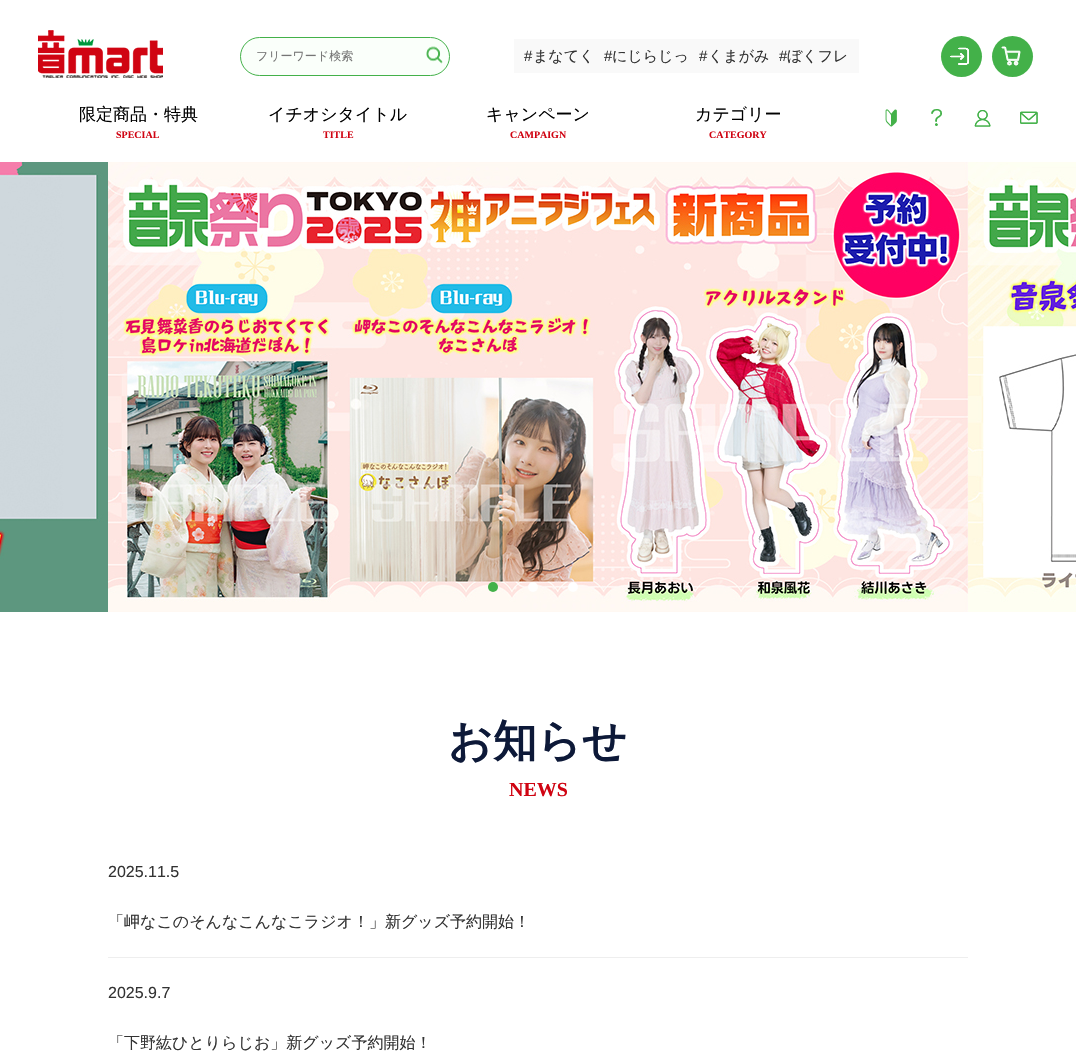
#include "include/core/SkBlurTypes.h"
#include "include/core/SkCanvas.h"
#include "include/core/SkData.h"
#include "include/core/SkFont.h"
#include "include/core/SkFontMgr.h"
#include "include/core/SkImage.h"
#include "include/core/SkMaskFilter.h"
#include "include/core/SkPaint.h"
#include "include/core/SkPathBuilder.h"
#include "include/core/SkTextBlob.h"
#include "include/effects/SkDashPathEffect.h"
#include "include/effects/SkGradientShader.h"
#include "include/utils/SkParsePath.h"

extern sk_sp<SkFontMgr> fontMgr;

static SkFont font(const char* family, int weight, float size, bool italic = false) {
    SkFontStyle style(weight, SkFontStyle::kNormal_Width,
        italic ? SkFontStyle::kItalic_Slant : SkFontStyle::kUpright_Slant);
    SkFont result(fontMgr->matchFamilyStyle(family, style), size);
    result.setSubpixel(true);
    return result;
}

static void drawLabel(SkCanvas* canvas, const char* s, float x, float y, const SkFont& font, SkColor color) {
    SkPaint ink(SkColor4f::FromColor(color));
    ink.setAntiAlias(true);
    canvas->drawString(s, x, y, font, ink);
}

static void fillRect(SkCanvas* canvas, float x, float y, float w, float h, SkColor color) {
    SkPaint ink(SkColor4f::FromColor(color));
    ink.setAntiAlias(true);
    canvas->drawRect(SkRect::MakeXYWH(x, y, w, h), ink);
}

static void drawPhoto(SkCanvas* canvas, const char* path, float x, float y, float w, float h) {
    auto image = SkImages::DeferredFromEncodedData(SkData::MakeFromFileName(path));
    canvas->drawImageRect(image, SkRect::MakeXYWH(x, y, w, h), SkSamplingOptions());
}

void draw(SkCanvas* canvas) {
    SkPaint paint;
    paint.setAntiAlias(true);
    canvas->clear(0xFFFFFFFF);
    drawPhoto(canvas, "assets/img1.png", 38, 30, 125, 48);
    paint.setColor(0xFFFAFFFA);
    canvas->drawRoundRect(SkRect::MakeXYWH(240.5f, 37.5f, 209, 38), 19, 19, paint);
    paint.setStroke(true);
    paint.setStrokeWidth(1);
    paint.setColor(0xFF43B149);
    canvas->drawRoundRect(SkRect::MakeXYWH(240.5f, 37.5f, 209, 38), 19, 19, paint);
    SkFont font1 = font("WenQuanYi Zen Hei", 500, 12);
    drawLabel(canvas, "フリーワード検索", 256, 60, font1, 0xFF757575);
    drawPhoto(canvas, "assets/img2.png", 426, 46, 17, 18);
    fillRect(canvas, 514, 39, 345, 34, 0xFFF9F9F9);
    SkFont font2 = font("Liberation Sans", 400, 15);
    drawLabel(canvas, "#", 524, 61, font2, 0xFF333333);
    SkFont font3 = font("WenQuanYi Zen Hei", 500, 15);
    drawLabel(canvas, "まなてく", 533, 61, font3, 0xFF333333);
    drawLabel(canvas, "#", 604, 61, font2, 0xFF333333);
    drawLabel(canvas, "にじらじっ", 612, 61, font3, 0xFF333333);
    drawLabel(canvas, "#", 699, 61, font2, 0xFF333333);
    drawLabel(canvas, "くまがみ", 708, 61, font3, 0xFF333333);
    drawLabel(canvas, "#", 779, 61, font2, 0xFF333333);
    drawLabel(canvas, "ぼくフレ", 787, 61, font3, 0xFF333333);
    paint.setStroke(false);
    canvas->drawCircle(961.5f, 56.5f, 20.5f, paint);
    drawPhoto(canvas, "assets/img3.png", 950, 47, 19, 18);
    canvas->drawCircle(1012.5f, 56.5f, 20.5f, paint);
    drawPhoto(canvas, "assets/img4.png", 1001, 46, 20, 20);
    SkFont font4 = font("WenQuanYi Zen Hei", 500, 17);
    drawLabel(canvas, "限定商品・特典", 79, 120, font4, 0xFF000000);
    SkFont font5 = font("Liberation Serif", 700, 10);
    drawLabel(canvas, "SPECIAL", 116, 138, font5, 0xFFD00412);
    drawLabel(canvas, "イチオシタイトル", 268, 120, font4, 0xFF000000);
    drawLabel(canvas, "TITLE", 323, 138, font5, 0xFFD00412);
    drawLabel(canvas, "キャンペーン", 486, 120, font4, 0xFF000000);
    drawLabel(canvas, "CAMPAIGN", 510, 138, font5, 0xFFD00412);
    drawLabel(canvas, "カテゴリー", 695, 120, font4, 0xFF000000);
    drawLabel(canvas, "CATEGORY", 709, 138, font5, 0xFFD00412);
    drawPhoto(canvas, "assets/img5.png", 885, 109, 12, 18);
    drawPhoto(canvas, "assets/img6.png", 931, 109, 11, 17);
    drawPhoto(canvas, "assets/img7.png", 974, 110, 17, 17);
    drawPhoto(canvas, "assets/img8.png", 1020, 111, 18, 13);
    drawPhoto(canvas, "assets/img9.png", 0, 162, 108, 450);
    drawPhoto(canvas, "assets/img10.png", 108, 162, 860, 450);
    drawPhoto(canvas, "assets/img11.png", 968, 162, 108, 450);
    canvas->drawCircle(493, 587, 5, paint);
    paint.setColor(0xFFFFFFFF);
    canvas->drawCircle(533, 587, 5, paint);
    canvas->drawCircle(573, 587, 5, paint);
    SkFont font6 = font("WenQuanYi Zen Hei", 700, 44);
    drawLabel(canvas, "お知らせ", 448, 756, font6, 0xFF0D1938);
    SkFont font7 = font("Liberation Serif", 700, 20);
    drawLabel(canvas, "NEWS", 509, 796, font7, 0xFFD00412);
    fillRect(canvas, 108, 957, 860, 1, 0xFFEEEEEE);
    SkFont font8 = font("Liberation Sans", 400, 16);
    drawLabel(canvas, "2025.11.5", 108, 877, font8, 0xFF333333);
    SkFont font9 = font("WenQuanYi Zen Hei", 500, 16);
    drawLabel(canvas, "「岬なこのそんなこんなこラジオ！」新グッズ予約開始！", 108, 927, font9, 0xFF333333);
    drawLabel(canvas, "2025.9.7", 108, 998, font8, 0xFF333333);
    drawLabel(canvas, "「下野紘ひとりらじお」新グッズ予約開始！", 108, 1048, font9, 0xFF333333);
}
